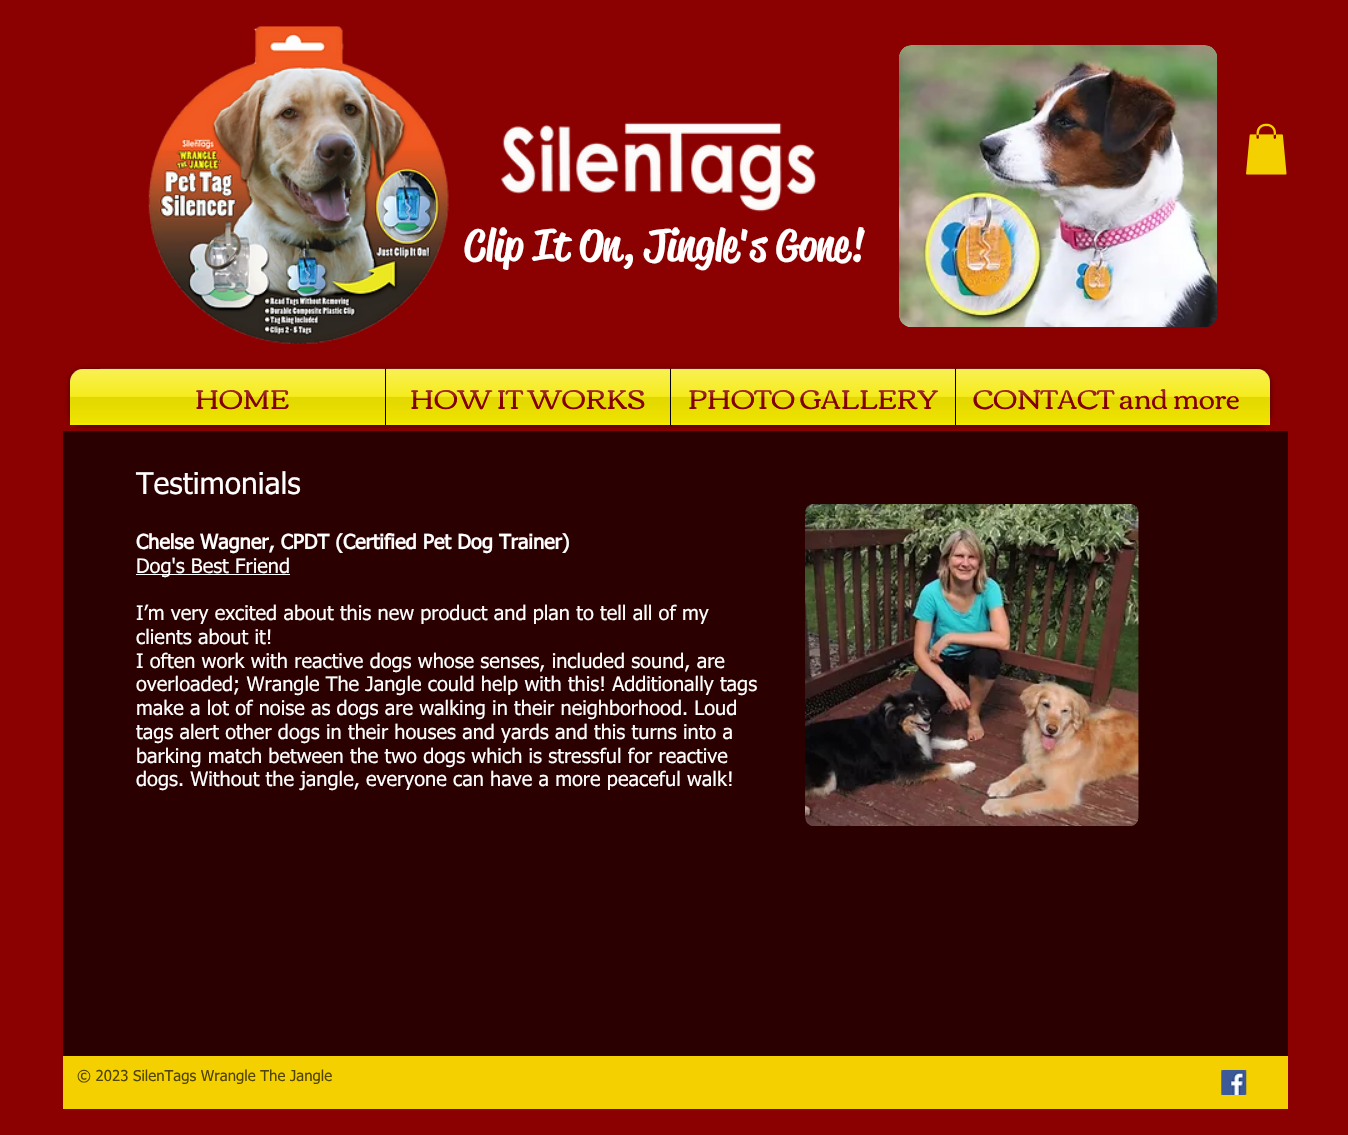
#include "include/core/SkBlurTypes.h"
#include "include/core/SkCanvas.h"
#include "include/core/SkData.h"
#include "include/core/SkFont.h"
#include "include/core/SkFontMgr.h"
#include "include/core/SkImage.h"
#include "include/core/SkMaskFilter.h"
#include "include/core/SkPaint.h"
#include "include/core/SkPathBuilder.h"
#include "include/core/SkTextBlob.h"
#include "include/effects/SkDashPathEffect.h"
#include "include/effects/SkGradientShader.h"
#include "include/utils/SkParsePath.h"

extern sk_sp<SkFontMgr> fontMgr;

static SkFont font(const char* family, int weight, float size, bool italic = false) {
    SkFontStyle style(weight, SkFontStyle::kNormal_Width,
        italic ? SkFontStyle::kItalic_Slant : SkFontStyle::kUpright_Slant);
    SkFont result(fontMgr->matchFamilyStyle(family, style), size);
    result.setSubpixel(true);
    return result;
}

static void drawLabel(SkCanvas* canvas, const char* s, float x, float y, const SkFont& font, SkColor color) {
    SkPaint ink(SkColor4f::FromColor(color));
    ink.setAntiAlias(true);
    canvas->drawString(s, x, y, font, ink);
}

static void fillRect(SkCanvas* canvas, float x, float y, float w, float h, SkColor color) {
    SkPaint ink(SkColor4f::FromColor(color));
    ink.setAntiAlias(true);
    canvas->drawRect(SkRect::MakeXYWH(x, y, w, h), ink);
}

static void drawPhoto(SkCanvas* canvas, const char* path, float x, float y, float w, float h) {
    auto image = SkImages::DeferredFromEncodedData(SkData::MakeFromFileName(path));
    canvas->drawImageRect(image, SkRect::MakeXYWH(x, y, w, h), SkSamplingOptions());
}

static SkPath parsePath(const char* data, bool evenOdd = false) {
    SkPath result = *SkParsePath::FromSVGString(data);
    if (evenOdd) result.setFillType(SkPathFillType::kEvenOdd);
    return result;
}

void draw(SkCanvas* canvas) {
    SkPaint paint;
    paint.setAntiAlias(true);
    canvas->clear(0xFF8B0000);
    drawPhoto(canvas, "assets/img1.png", 148, 26, 301, 319);
    drawPhoto(canvas, "assets/img2.png", 501, 122, 316, 90);
    drawPhoto(canvas, "assets/img3.png", 899, 45, 319, 283);
    drawPhoto(canvas, "assets/img4.png", 1246, 123, 41, 52);
    SkFont font1 = font("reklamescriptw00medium", 500, 43.75f);
    drawLabel(canvas, "Clip It On, Jingle's Gone!", 464, 260, font1, 0xFFFFFFFF);
    paint.setColor(0x99000000);
    paint.setMaskFilter(SkMaskFilter::MakeBlur(kNormal_SkBlurStyle, 2.5f));
    canvas->drawRoundRect(SkRect::MakeXYWH(70, 370, 1200, 56), 13, 13, paint);
    paint.setMaskFilter(nullptr);
    paint.setColor(0xFFF5E900);
    canvas->drawPath(parsePath("M83 369H1257C1264 369 1270 375 1270 382V425H70V382C70 375 76 369 83 369Z"), paint);
    drawPhoto(canvas, "assets/img5.png", 70, 369, 1200, 54);
    fillRect(canvas, 100, 369, 285, 54, 0xFFF5E900);
    SkFont font2 = font("Corben", 400, 27.5f);
    drawLabel(canvas, "HOME", 195, 409, font2, 0xFF8B0000);
    drawPhoto(canvas, "assets/img6.png", 100, 368, 285, 55);
    fillRect(canvas, 386, 369, 284, 54, 0xFFF5E900);
    fillRect(canvas, 385, 369, 1, 56, 0xFF000000);
    drawLabel(canvas, "HOW IT WORKS", 410, 409, font2, 0xFF8B0000);
    drawPhoto(canvas, "assets/img7.png", 386, 368, 284, 55);
    fillRect(canvas, 671, 369, 284, 54, 0xFFF5E900);
    fillRect(canvas, 670, 369, 1, 56, 0xFF000000);
    drawLabel(canvas, "PHOTO GALLERY", 688, 409, font2, 0xFF8B0000);
    drawPhoto(canvas, "assets/img8.png", 671, 368, 284, 55);
    fillRect(canvas, 956, 369, 284, 54, 0xFFF5E900);
    fillRect(canvas, 955, 369, 1, 56, 0xFF000000);
    drawLabel(canvas, "CONTACT and more", 973, 409, font2, 0xFF8B0000);
    drawPhoto(canvas, "assets/img9.png", 956, 368, 284, 55);
    fillRect(canvas, 63, 431, 1225, 625, 0xFF2A0000);
    SkFont font3 = font("tahoma", 400, 30);
    drawLabel(canvas, "Testimonials", 136, 494, font3, 0xFFFFFFFF);
    SkFont font4 = font("tahoma", 700, 20);
    drawLabel(canvas, "Chelse Wagner, CPDT (Certified Pet Dog Trainer)", 136, 549, font4, 0xFFFFFFFF);
    fillRect(canvas, 136, 574, 154, 1, 0xFFFFFFFF);
    SkFont font5 = font("tahoma", 400, 20);
    drawLabel(canvas, "Dog's Best Friend", 136, 573, font5, 0xFFFFFFFF);
    drawLabel(canvas, "I’m very excited about this new product and plan to tell all of my", 136, 620, font5, 0xFFFFFFFF);
    drawLabel(canvas, "clients about it!", 136, 644, font5, 0xFFFFFFFF);
    drawLabel(canvas, "I often work with reactive dogs whose senses, included sound, are", 136, 668, font5, 0xFFFFFFFF);
    drawLabel(canvas, "overloaded; Wrangle The Jangle could help with this! Additionally tags", 136, 691, font5, 0xFFFFFFFF);
    drawLabel(canvas, "make a lot of noise as dogs are walking in their neighborhood. Loud", 136, 715, font5, 0xFFFFFFFF);
    drawLabel(canvas, "tags alert other dogs in their houses and yards and this turns into a", 136, 739, font5, 0xFFFFFFFF);
    drawLabel(canvas, "barking match between the two dogs which is stressful for reactive", 136, 763, font5, 0xFFFFFFFF);
    drawLabel(canvas, "dogs. Without the jangle, everyone can have a more peaceful walk!", 136, 786, font5, 0xFFFFFFFF);
    drawPhoto(canvas, "assets/img10.png", 805, 504, 334, 322);
    fillRect(canvas, 63, 1056, 1225, 53, 0xFFF5D000);
    SkFont font6 = font("tahoma", 400, 15);
    drawLabel(canvas, "© 2023 SilenTags Wrangle The Jangle", 77, 1081, font6, 0xFF524500);
    drawPhoto(canvas, "assets/img11.png", 1221, 1070, 26, 25);
}
